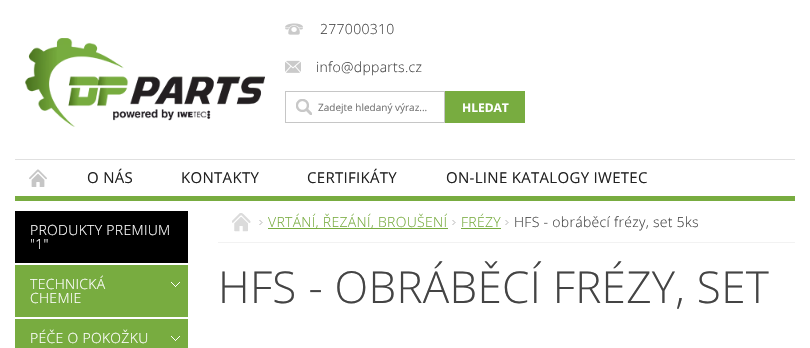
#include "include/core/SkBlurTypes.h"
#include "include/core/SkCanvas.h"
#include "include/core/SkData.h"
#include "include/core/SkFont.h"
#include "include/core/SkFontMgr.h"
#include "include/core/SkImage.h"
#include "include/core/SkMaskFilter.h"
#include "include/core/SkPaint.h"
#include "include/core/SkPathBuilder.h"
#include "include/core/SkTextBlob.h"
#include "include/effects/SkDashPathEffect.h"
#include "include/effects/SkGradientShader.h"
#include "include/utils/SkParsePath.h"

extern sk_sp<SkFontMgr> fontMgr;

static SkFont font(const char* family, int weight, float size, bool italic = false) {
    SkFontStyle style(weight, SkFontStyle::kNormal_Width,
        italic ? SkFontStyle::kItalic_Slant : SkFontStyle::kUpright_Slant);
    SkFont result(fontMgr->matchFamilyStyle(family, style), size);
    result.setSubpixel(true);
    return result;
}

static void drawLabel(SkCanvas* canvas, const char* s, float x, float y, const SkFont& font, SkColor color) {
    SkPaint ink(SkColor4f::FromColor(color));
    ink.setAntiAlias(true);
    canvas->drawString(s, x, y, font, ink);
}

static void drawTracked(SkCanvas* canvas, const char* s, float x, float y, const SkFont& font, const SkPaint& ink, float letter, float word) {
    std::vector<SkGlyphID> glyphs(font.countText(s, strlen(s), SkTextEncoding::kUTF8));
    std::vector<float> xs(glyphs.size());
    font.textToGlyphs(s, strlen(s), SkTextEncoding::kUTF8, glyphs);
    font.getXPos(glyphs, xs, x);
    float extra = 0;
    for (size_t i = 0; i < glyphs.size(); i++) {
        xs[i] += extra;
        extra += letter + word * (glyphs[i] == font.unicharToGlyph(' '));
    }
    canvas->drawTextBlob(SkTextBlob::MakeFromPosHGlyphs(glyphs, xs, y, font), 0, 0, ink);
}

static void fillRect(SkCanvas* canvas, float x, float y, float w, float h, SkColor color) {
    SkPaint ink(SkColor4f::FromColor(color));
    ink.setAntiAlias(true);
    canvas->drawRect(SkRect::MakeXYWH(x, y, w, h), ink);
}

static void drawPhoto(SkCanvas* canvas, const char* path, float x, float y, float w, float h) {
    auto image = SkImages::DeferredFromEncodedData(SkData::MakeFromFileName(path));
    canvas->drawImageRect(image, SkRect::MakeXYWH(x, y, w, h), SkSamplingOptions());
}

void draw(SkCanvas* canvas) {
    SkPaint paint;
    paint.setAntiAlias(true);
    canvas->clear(0xFFFFFFFF);
    fillRect(canvas, 15, 196, 780, 5, 0xFF78AC40);
    drawPhoto(canvas, "assets/img1.png", 25, 38, 240, 89);
    drawPhoto(canvas, "assets/img2.png", 285, 23, 18, 12);
    SkFont font1 = font("Open Sans", 300, 14);
    paint.setColor(0xFF444444);
    drawTracked(canvas, "277000310", 320, 34, font1, paint, 0.3f, 0);
    drawPhoto(canvas, "assets/img3.png", 285, 60, 16, 13);
    drawTracked(canvas, "info@dpparts.cz", 316, 72, font1, paint, 0.3f, 0);
    drawPhoto(canvas, "assets/img4.png", 296, 99, 16, 16);
    paint.setStroke(true);
    paint.setStrokeWidth(1);
    paint.setColor(0xFFC6C6C6);
    canvas->drawRect(SkRect::MakeXYWH(285.5f, 91.5f, 159, 31), paint);
    SkFont font2 = font("Open Sans", 400, 10);
    drawLabel(canvas, "Zadejte hledaný výraz...", 318, 111, font2, 0xFF757575);
    fillRect(canvas, 445, 91, 80, 32, 0xFF78AC40);
    SkFont font3 = font("Open Sans", 700, 12);
    drawLabel(canvas, "HLEDAT", 462, 112, font3, 0xFFFFFFFF);
    fillRect(canvas, 15, 159, 780, 1, 0xFFE0E0E0);
    drawPhoto(canvas, "assets/img5.png", 29, 169, 18, 18);
    SkFont font4 = font("Open Sans", 400, 15);
    paint.setStroke(false);
    paint.setColor(0xFF222222);
    drawTracked(canvas, "O NÁS", 87, 183, font4, paint, 0.3f, 0);
    drawTracked(canvas, "KONTAKTY", 181, 183, font4, paint, 0.3f, 0);
    drawTracked(canvas, "CERTIFIKÁTY", 307, 183, font4, paint, 0.3f, 0);
    drawTracked(canvas, "ON-LINE KATALOGY IWETEC", 446, 183, font4, paint, 0.3f, 0);
    fillRect(canvas, 15, 211, 173, 52, 0xFF000000);
    paint.setColor(0xFFFFFFFF);
    drawTracked(canvas, "PRODUKTY PREMIUM", 30, 235, font1, paint, 0.3f, 0);
    drawTracked(canvas, "\"1\"", 30, 249, font1, paint, 0.3f, 0);
    fillRect(canvas, 15, 265, 173, 52, 0xFF78AC40);
    drawPhoto(canvas, "assets/img6.png", 171, 282, 9, 5);
    drawTracked(canvas, "TECHNICKÁ", 30, 289, font1, paint, 0.3f, 0);
    drawTracked(canvas, "CHEMIE", 30, 303, font1, paint, 0.3f, 0);
    fillRect(canvas, 15, 319, 173, 29, 0xFF78AC40);
    drawPhoto(canvas, "assets/img6.png", 171, 336, 9, 5);
    drawTracked(canvas, "PÉČE O POKOŽKU", 30, 343, font1, paint, 0.3f, 0);
    fillRect(canvas, 218, 242, 577, 1, 0xFFF2F2F2);
    drawPhoto(canvas, "assets/img7.png", 232, 213, 19, 19);
    drawPhoto(canvas, "assets/img8.png", 259, 220, 4, 5);
    fillRect(canvas, 268, 228, 180, 1, 0xFF78AC40);
    paint.setColor(0xFF78AC40);
    drawTracked(canvas, "VRTÁNÍ, ŘEZÁNÍ, BROUŠENÍ", 268, 227, font1, paint, 0.3f, 0);
    drawPhoto(canvas, "assets/img8.png", 452, 220, 4, 5);
    drawTracked(canvas, "FRÉZY", 461, 227, font1, paint, 0.3f, 0);
    fillRect(canvas, 461, 228, 40, 1, 0xFF78AC40);
    drawPhoto(canvas, "assets/img8.png", 505, 220, 4, 5);
    paint.setColor(0xFF444444);
    drawTracked(canvas, "HFS - obráběcí frézy, set 5ks", 514, 227, font1, paint, 0.3f, 0);
    SkFont font5 = font("Open Sans", 300, 44);
    drawTracked(canvas, "HFS - OBRÁBĚCÍ FRÉZY, SET", 218, 303, font5, paint, 0.3f, 0);
}
